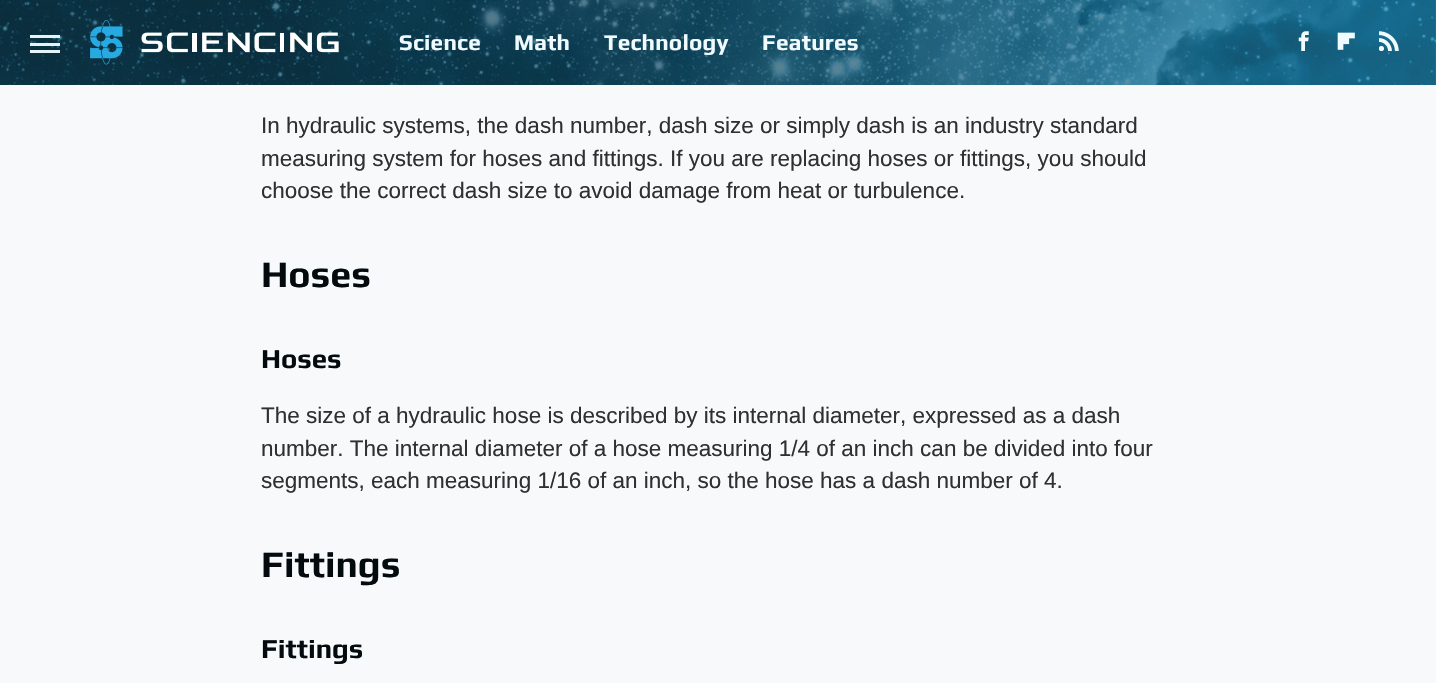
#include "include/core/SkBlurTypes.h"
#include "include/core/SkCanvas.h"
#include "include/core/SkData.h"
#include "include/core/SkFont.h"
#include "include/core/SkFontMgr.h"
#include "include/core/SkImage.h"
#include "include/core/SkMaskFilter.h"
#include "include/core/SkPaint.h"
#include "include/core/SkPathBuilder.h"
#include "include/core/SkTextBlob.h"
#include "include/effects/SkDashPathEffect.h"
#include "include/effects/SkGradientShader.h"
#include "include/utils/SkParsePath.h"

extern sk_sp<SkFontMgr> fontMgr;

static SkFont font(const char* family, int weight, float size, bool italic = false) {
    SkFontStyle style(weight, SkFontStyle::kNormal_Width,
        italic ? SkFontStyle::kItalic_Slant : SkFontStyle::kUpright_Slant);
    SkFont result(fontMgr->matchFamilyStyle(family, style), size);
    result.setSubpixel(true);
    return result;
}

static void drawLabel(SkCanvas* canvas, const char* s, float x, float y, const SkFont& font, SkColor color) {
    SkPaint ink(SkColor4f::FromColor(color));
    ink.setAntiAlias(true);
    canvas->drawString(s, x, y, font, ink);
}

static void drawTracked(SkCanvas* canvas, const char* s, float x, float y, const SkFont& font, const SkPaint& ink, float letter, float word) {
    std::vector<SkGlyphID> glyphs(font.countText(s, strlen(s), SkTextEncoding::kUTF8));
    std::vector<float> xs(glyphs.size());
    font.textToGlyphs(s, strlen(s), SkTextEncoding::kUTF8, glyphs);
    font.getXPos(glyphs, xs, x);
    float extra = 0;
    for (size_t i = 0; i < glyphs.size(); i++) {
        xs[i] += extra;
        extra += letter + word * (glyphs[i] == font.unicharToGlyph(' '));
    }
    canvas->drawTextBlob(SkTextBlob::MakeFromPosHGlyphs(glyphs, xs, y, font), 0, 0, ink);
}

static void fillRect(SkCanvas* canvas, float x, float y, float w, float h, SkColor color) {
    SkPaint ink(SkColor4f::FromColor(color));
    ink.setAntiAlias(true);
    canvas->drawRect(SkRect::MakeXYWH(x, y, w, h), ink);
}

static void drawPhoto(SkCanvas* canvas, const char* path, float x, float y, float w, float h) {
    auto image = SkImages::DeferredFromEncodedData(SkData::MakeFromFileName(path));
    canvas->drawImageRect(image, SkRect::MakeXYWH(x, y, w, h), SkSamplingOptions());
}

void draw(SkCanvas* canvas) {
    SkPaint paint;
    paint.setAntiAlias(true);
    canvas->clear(0xFFF7F9FA);
    drawPhoto(canvas, "assets/img1.png", 0, 0, 1436, 85);
    fillRect(canvas, 30, 35, 30, 3, 0xFFE3F4FB);
    fillRect(canvas, 30, 43, 30, 3, 0xFFE3F4FB);
    fillRect(canvas, 30, 50, 30, 3, 0xFFE3F4FB);
    drawPhoto(canvas, "assets/img2.png", 90, 20, 249, 45);
    SkFont font1 = font("Play", 700, 22.5f);
    paint.setColor(0xFFF0FBFF);
    drawTracked(canvas, "Science", 399, 50, font1, paint, 0.25f, 0);
    drawTracked(canvas, "Math", 514, 50, font1, paint, 0.25f, 0);
    drawTracked(canvas, "Technology", 604, 50, font1, paint, 0.25f, 0);
    drawTracked(canvas, "Features", 762, 50, font1, paint, 0.25f, 0);
    drawPhoto(canvas, "assets/img3.png", 1298, 31, 11, 20);
    drawPhoto(canvas, "assets/img4.png", 1337, 32, 18, 18);
    drawPhoto(canvas, "assets/img5.png", 1379, 31, 20, 20);
    SkFont font2 = font("Liberation Sans", 400, 22.5f);
    drawLabel(canvas, "In hydraulic systems, the dash number, dash size or simply dash is an industry standard", 261, 133, font2, 0xFF2E3132);
    drawLabel(canvas, "measuring system for hoses and fittings. If you are replacing hoses or fittings, you should", 261, 166, font2, 0xFF2E3132);
    drawLabel(canvas, "choose the correct dash size to avoid damage from heat or turbulence.", 261, 198, font2, 0xFF2E3132);
    SkFont font3 = font("Play", 700, 37.5f);
    drawLabel(canvas, "Hoses", 261, 287, font3, 0xFF030B0F);
    SkFont font4 = font("Play", 700, 27.5f);
    drawLabel(canvas, "Hoses", 261, 368, font4, 0xFF030B0F);
    drawLabel(canvas, "The size of a hydraulic hose is described by its internal diameter, expressed as a dash", 261, 423, font2, 0xFF2E3132);
    drawLabel(canvas, "number. The internal diameter of a hose measuring 1/4 of an inch can be divided into four", 261, 456, font2, 0xFF2E3132);
    drawLabel(canvas, "segments, each measuring 1/16 of an inch, so the hose has a dash number of 4.", 261, 488, font2, 0xFF2E3132);
    drawLabel(canvas, "Fittings", 261, 577, font3, 0xFF030B0F);
    drawLabel(canvas, "Fittings", 261, 658, font4, 0xFF030B0F);
}
